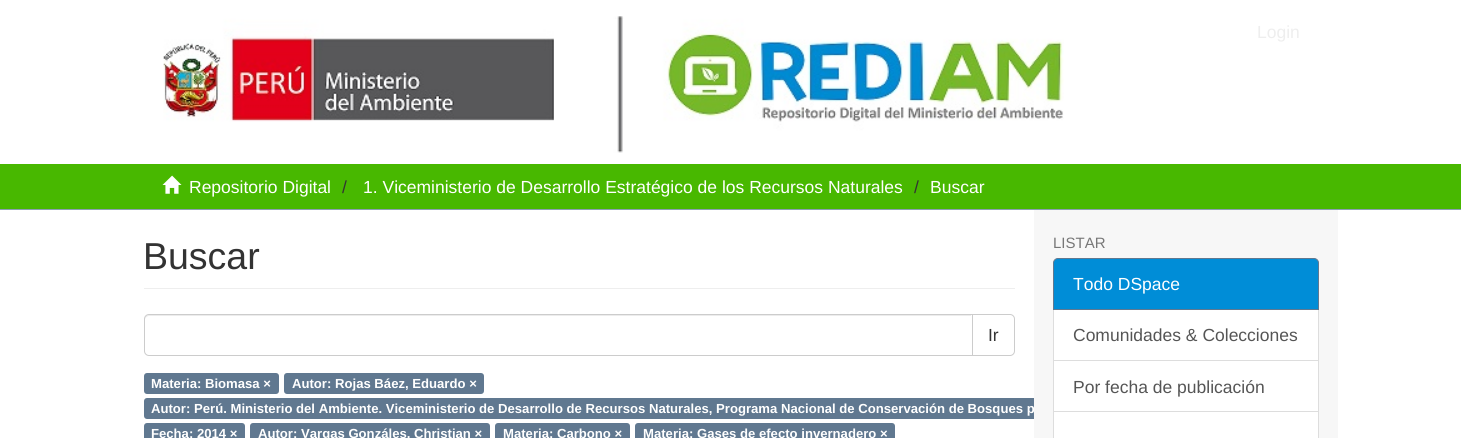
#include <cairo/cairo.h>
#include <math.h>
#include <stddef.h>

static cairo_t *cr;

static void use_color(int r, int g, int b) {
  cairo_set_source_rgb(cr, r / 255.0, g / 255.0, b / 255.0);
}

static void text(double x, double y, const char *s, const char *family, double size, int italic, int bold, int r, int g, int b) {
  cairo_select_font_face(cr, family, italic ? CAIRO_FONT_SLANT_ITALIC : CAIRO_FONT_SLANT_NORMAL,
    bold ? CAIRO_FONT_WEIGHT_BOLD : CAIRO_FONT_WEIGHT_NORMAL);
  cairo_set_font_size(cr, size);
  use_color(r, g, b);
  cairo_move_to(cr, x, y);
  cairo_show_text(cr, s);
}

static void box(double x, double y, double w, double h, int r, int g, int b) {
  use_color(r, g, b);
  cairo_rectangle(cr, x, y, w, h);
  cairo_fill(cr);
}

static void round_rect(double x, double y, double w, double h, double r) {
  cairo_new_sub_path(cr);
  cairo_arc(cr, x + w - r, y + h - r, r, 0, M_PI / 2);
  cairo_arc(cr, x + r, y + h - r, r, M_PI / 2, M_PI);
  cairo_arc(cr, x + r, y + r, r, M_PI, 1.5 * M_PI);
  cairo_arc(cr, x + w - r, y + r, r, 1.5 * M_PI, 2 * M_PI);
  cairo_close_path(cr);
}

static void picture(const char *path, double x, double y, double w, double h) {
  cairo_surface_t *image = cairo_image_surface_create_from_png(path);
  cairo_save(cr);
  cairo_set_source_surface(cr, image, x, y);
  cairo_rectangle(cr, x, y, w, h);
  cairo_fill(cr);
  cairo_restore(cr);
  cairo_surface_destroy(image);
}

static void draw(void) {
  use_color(255, 255, 255);
  cairo_paint(cr);
  picture("img_01.png", 163, 16, 901, 137);
  box(0, 164, 1461, 45, 72, 184, 0);
  box(0, 209, 1461, 1, 139, 158, 178);
  picture("img_02.png", 162, 175, 20, 19);
  box(144, 288, 871, 1, 238, 238, 238);
  cairo_new_path(cr);
  cairo_move_to(cr, 971.5, 314.5);
  cairo_line_to(cr, 1010, 314.5);
  cairo_curve_to(cr, 1012.5, 314.5, 1014.5, 316.5, 1014.5, 319);
  cairo_line_to(cr, 1014.5, 351);
  cairo_curve_to(cr, 1014.5, 353.5, 1012.5, 355.5, 1010, 355.5);
  cairo_line_to(cr, 971.5, 355.5);
  cairo_close_path(cr);
  use_color(204, 204, 204);
  cairo_set_line_width(cr, 1);
  cairo_stroke(cr);
  use_color(255, 255, 255);
  cairo_new_path(cr);
  cairo_move_to(cr, 149, 314);
  cairo_line_to(cr, 973, 314);
  cairo_line_to(cr, 973, 356);
  cairo_line_to(cr, 149, 356);
  cairo_curve_to(cr, 146, 356, 144, 354, 144, 351);
  cairo_line_to(cr, 144, 319);
  cairo_curve_to(cr, 144, 316, 146, 314, 149, 314);
  cairo_close_path(cr);
  cairo_fill(cr);
  use_color(236, 236, 236);
  cairo_new_path(cr);
  cairo_move_to(cr, 149, 316);
  cairo_line_to(cr, 971, 316);
  cairo_line_to(cr, 971, 315);
  cairo_line_to(cr, 149, 315);
  cairo_curve_to(cr, 146, 315, 145, 317, 145, 320);
  cairo_curve_to(cr, 145, 318, 147, 316, 149, 316);
  cairo_close_path(cr);
  cairo_fill(cr);
  cairo_new_path(cr);
  cairo_move_to(cr, 149, 314.5);
  cairo_line_to(cr, 972.5, 314.5);
  cairo_line_to(cr, 972.5, 355.5);
  cairo_line_to(cr, 149, 355.5);
  cairo_curve_to(cr, 146.5, 355.5, 144.5, 353.5, 144.5, 351);
  cairo_line_to(cr, 144.5, 319);
  cairo_curve_to(cr, 144.5, 316.5, 146.5, 314.5, 149, 314.5);
  cairo_close_path(cr);
  use_color(204, 204, 204);
  cairo_stroke(cr);
  use_color(96, 120, 144);
  round_rect(144, 373, 135, 21, 3);
  cairo_fill(cr);
  round_rect(284, 373, 200, 21, 3);
  cairo_fill(cr);
  round_rect(144, 398, 1150, 21, 3);
  cairo_fill(cr);
  round_rect(144, 423, 101, 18, 3);
  cairo_fill(cr);
  round_rect(250, 423, 240, 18, 3);
  cairo_fill(cr);
  round_rect(495, 423, 135, 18, 3);
  cairo_fill(cr);
  round_rect(635, 423, 260, 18, 3);
  cairo_fill(cr);
  text(1257, 38, "Login", "Liberation Sans", 17.5, 0, 0, 238, 238, 238);
  text(189, 193, "Repositorio Digital", "Liberation Sans", 17.5, 0, 0, 255, 255, 255);
  text(342, 193, "/", "Liberation Sans", 17.5, 0, 0, 51, 51, 51);
  text(363, 193, "1. Viceministerio de Desarrollo Estratégico de los Recursos Naturales", "Liberation Sans", 17.5, 0, 0, 255, 255, 255);
  text(914, 193, "/", "Liberation Sans", 17.5, 0, 0, 51, 51, 51);
  text(930, 193, "Buscar", "Liberation Sans", 17.5, 0, 0, 255, 255, 255);
  text(143, 269, "Buscar", "Liberation Sans", 37.5, 0, 0, 51, 51, 51);
  text(988, 341, "Ir", "Liberation Sans", 17.5, 0, 0, 51, 51, 51);
  text(151, 388, "Materia: Biomasa ×", "Liberation Sans", 13.12, 0, 1, 255, 255, 255);
  text(292, 388, "Autor: Rojas Báez, Eduardo ×", "Liberation Sans", 13.12, 0, 1, 255, 255, 255);
  text(151, 413, "Autor: Perú. Ministerio del Ambiente. Viceministerio de Desarrollo de Recursos Naturales, Programa Nacional de Conservación de Bosques p", "Liberation Sans", 13.12, 0, 1, 255, 255, 255);
  text(151, 438, "Fecha: 2014 ×", "Liberation Sans", 13.12, 0, 1, 255, 255, 255);
  text(258, 438, "Autor: Vargas Gonzáles, Christian ×", "Liberation Sans", 13.12, 0, 1, 255, 255, 255);
  text(503, 438, "Materia: Carbono ×", "Liberation Sans", 13.12, 0, 1, 255, 255, 255);
  text(643, 438, "Materia: Gases de efecto invernadero ×", "Liberation Sans", 13.12, 0, 1, 255, 255, 255);
  box(1034, 210, 304, 228, 247, 247, 247);
  text(1053, 248, "LISTAR", "Liberation Sans", 15, 0, 0, 119, 119, 119);
  use_color(255, 255, 255);
  cairo_rectangle(cr, 1053.5, 309.5, 265, 51);
  cairo_fill_preserve(cr);
  use_color(221, 221, 221);
  cairo_stroke(cr);
  use_color(0, 141, 215);
  cairo_new_path(cr);
  cairo_move_to(cr, 1058, 258.5);
  cairo_line_to(cr, 1314, 258.5);
  cairo_curve_to(cr, 1316.5, 258.5, 1318.5, 260.5, 1318.5, 263);
  cairo_line_to(cr, 1318.5, 309.5);
  cairo_line_to(cr, 1053.5, 309.5);
  cairo_line_to(cr, 1053.5, 263);
  cairo_curve_to(cr, 1053.5, 260.5, 1055.5, 258.5, 1058, 258.5);
  cairo_close_path(cr);
  cairo_fill_preserve(cr);
  use_color(96, 120, 144);
  cairo_stroke(cr);
  text(1073, 290, "Todo DSpace", "Liberation Sans", 17.5, 0, 0, 255, 255, 255);
  text(1073, 341, "Comunidades & Colecciones", "Liberation Sans", 17.5, 0, 0, 85, 85, 85);
  box(1054, 361, 264, 50, 255, 255, 255);
  cairo_rectangle(cr, 1053.5, 360.5, 265, 52);
  use_color(221, 221, 221);
  cairo_stroke(cr);
  text(1073, 393, "Por fecha de publicación", "Liberation Sans", 17.5, 0, 0, 85, 85, 85);
  use_color(255, 255, 255);
  cairo_rectangle(cr, 1053.5, 411.5, 265, 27);
  cairo_fill_preserve(cr);
  use_color(221, 221, 221);
  cairo_stroke(cr);
}

int main(void) {
  cairo_surface_t *surface = cairo_image_surface_create(CAIRO_FORMAT_RGB24, 1461, 438);
  cr = cairo_create(surface);
  cairo_font_options_t *options = cairo_font_options_create();
  cairo_font_options_set_hint_metrics(options, CAIRO_HINT_METRICS_OFF);
  cairo_font_options_set_hint_style(options, CAIRO_HINT_STYLE_NONE);
  cairo_set_font_options(cr, options);
  cairo_set_miter_limit(cr, 4);
  draw();
  cairo_surface_write_to_png(surface, "out.png");
  cairo_font_options_destroy(options);
  cairo_destroy(cr);
  cairo_surface_destroy(surface);
  return 0;
}
